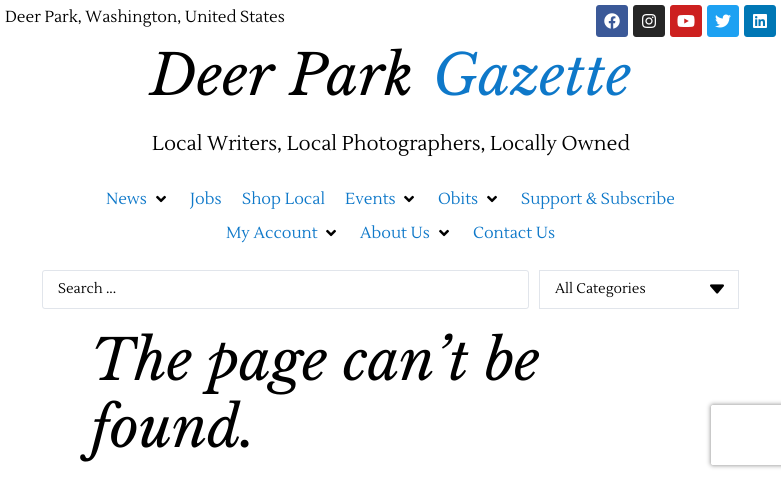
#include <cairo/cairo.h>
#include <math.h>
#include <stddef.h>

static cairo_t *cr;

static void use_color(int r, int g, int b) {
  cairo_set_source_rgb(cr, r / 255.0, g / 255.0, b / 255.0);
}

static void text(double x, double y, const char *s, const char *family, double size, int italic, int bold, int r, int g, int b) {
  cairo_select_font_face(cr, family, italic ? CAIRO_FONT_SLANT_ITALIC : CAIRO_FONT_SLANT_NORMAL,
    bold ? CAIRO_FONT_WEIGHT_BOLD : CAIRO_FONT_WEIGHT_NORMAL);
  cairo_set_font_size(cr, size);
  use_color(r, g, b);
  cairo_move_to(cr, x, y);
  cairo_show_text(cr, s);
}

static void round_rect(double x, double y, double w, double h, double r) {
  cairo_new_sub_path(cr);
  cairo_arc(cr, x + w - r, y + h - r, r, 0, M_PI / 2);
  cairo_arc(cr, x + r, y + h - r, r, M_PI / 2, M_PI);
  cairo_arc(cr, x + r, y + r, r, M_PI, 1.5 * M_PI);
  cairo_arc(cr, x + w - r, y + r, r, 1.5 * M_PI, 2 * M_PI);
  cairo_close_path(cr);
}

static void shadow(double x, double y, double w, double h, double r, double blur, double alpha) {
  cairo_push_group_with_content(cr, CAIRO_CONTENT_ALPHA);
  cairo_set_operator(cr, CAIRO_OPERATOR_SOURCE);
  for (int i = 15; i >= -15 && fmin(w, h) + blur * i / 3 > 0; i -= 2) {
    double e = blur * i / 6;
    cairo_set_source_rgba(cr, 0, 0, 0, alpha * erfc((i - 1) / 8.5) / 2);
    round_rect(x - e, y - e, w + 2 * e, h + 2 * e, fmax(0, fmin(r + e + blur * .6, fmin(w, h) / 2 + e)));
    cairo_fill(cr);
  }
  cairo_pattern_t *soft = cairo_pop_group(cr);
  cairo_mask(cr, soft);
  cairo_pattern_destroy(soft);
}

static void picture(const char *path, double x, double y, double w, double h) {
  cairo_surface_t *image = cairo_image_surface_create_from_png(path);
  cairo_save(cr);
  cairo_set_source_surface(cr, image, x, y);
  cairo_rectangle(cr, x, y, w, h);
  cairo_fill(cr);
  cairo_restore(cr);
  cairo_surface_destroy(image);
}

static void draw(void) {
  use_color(255, 255, 255);
  cairo_paint(cr);
  use_color(59, 89, 152);
  round_rect(596, 5, 32, 32, 3);
  cairo_fill(cr);
  picture("img_01.png", 604, 13, 16, 16);
  use_color(38, 38, 38);
  round_rect(633, 5, 32, 32, 3);
  cairo_fill(cr);
  picture("img_02.png", 642, 14, 14, 14);
  use_color(205, 32, 31);
  round_rect(670, 5, 32, 32, 3);
  cairo_fill(cr);
  picture("img_03.png", 677, 15, 18, 12);
  use_color(29, 161, 242);
  round_rect(707, 5, 32, 32, 3);
  cairo_fill(cr);
  picture("img_04.png", 715, 14, 16, 14);
  use_color(0, 119, 181);
  round_rect(744, 5, 32, 32, 3);
  cairo_fill(cr);
  picture("img_05.png", 753, 14, 14, 14);
  picture("img_06.png", 156, 195, 10, 8);
  picture("img_06.png", 404, 195, 10, 8);
  picture("img_06.png", 487, 195, 10, 8);
  picture("img_06.png", 326, 229, 10, 8);
  picture("img_06.png", 439, 229, 10, 8);
  round_rect(42.5, 270.5, 486, 38, 2.5);
  use_color(225, 229, 235);
  cairo_set_line_width(cr, 1);
  cairo_stroke(cr);
  cairo_rectangle(cr, 539.5, 270.5, 199, 38);
  cairo_stroke(cr);
  picture("img_07.png", 710, 284, 14, 10);
  cairo_save(cr);
  cairo_set_fill_rule(cr, CAIRO_FILL_RULE_EVEN_ODD);
  cairo_new_path(cr);
  cairo_move_to(cr, 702, 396);
  cairo_line_to(cr, 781, 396);
  cairo_line_to(cr, 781, 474);
  cairo_line_to(cr, 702, 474);
  cairo_close_path(cr);
  cairo_move_to(cr, 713, 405);
  cairo_line_to(cr, 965, 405);
  cairo_curve_to(cr, 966, 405, 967, 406, 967, 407);
  cairo_line_to(cr, 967, 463);
  cairo_curve_to(cr, 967, 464, 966, 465, 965, 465);
  cairo_line_to(cr, 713, 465);
  cairo_curve_to(cr, 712, 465, 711, 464, 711, 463);
  cairo_line_to(cr, 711, 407);
  cairo_curve_to(cr, 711, 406, 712, 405, 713, 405);
  cairo_close_path(cr);
  cairo_clip(cr);
  use_color(128, 128, 128);
  shadow(711, 405, 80, 60, 2, 2.5, 1);
  cairo_restore(cr);
  text(5, 22, "Deer Park, Washington, United States", "Lustria", 16, 0, 0, 0, 0, 0);
  text(150, 95, "Deer Park", "Libre Baskerville", 56, 1, 0, 0, 0, 0);
  text(433, 95, "Gazette", "Libre Baskerville", 56, 1, 0, 14, 120, 201);
  text(152, 150, "Local Writers, Local Photographers, Locally Owned", "Lustria", 20, 0, 0, 0, 0, 0);
  text(106, 204, "News", "Lustria", 16, 0, 0, 14, 120, 201);
  text(190, 204, "Jobs", "Lustria", 16, 0, 0, 14, 120, 201);
  text(242, 204, "Shop Local", "Lustria", 16, 0, 0, 14, 120, 201);
  text(345, 204, "Events", "Lustria", 16, 0, 0, 14, 120, 201);
  text(438, 204, "Obits", "Lustria", 16, 0, 0, 14, 120, 201);
  text(521, 204, "Support & Subscribe", "Lustria", 16, 0, 0, 14, 120, 201);
  text(226, 238, "My Account", "Lustria", 16, 0, 0, 14, 120, 201);
  text(360, 238, "About Us", "Lustria", 16, 0, 0, 14, 120, 201);
  text(473, 238, "Contact Us", "Lustria", 16, 0, 0, 14, 120, 201);
  text(58, 293, "Search ...", "Lustria", 14, 0, 0, 0, 0, 0);
  text(555, 293, "All Categories", "Lustria", 14, 0, 0, 0, 0, 0);
  text(91, 380, "The page can’t be", "Libre Baskerville", 56, 1, 0, 0, 0, 0);
  text(91, 447, "found.", "Libre Baskerville", 56, 1, 0, 0, 0, 0);
}

int main(void) {
  cairo_surface_t *surface = cairo_image_surface_create(CAIRO_FORMAT_RGB24, 781, 479);
  cr = cairo_create(surface);
  cairo_font_options_t *options = cairo_font_options_create();
  cairo_font_options_set_hint_metrics(options, CAIRO_HINT_METRICS_OFF);
  cairo_font_options_set_hint_style(options, CAIRO_HINT_STYLE_NONE);
  cairo_set_font_options(cr, options);
  cairo_set_miter_limit(cr, 4);
  draw();
  cairo_surface_write_to_png(surface, "out.png");
  cairo_font_options_destroy(options);
  cairo_destroy(cr);
  cairo_surface_destroy(surface);
  return 0;
}
